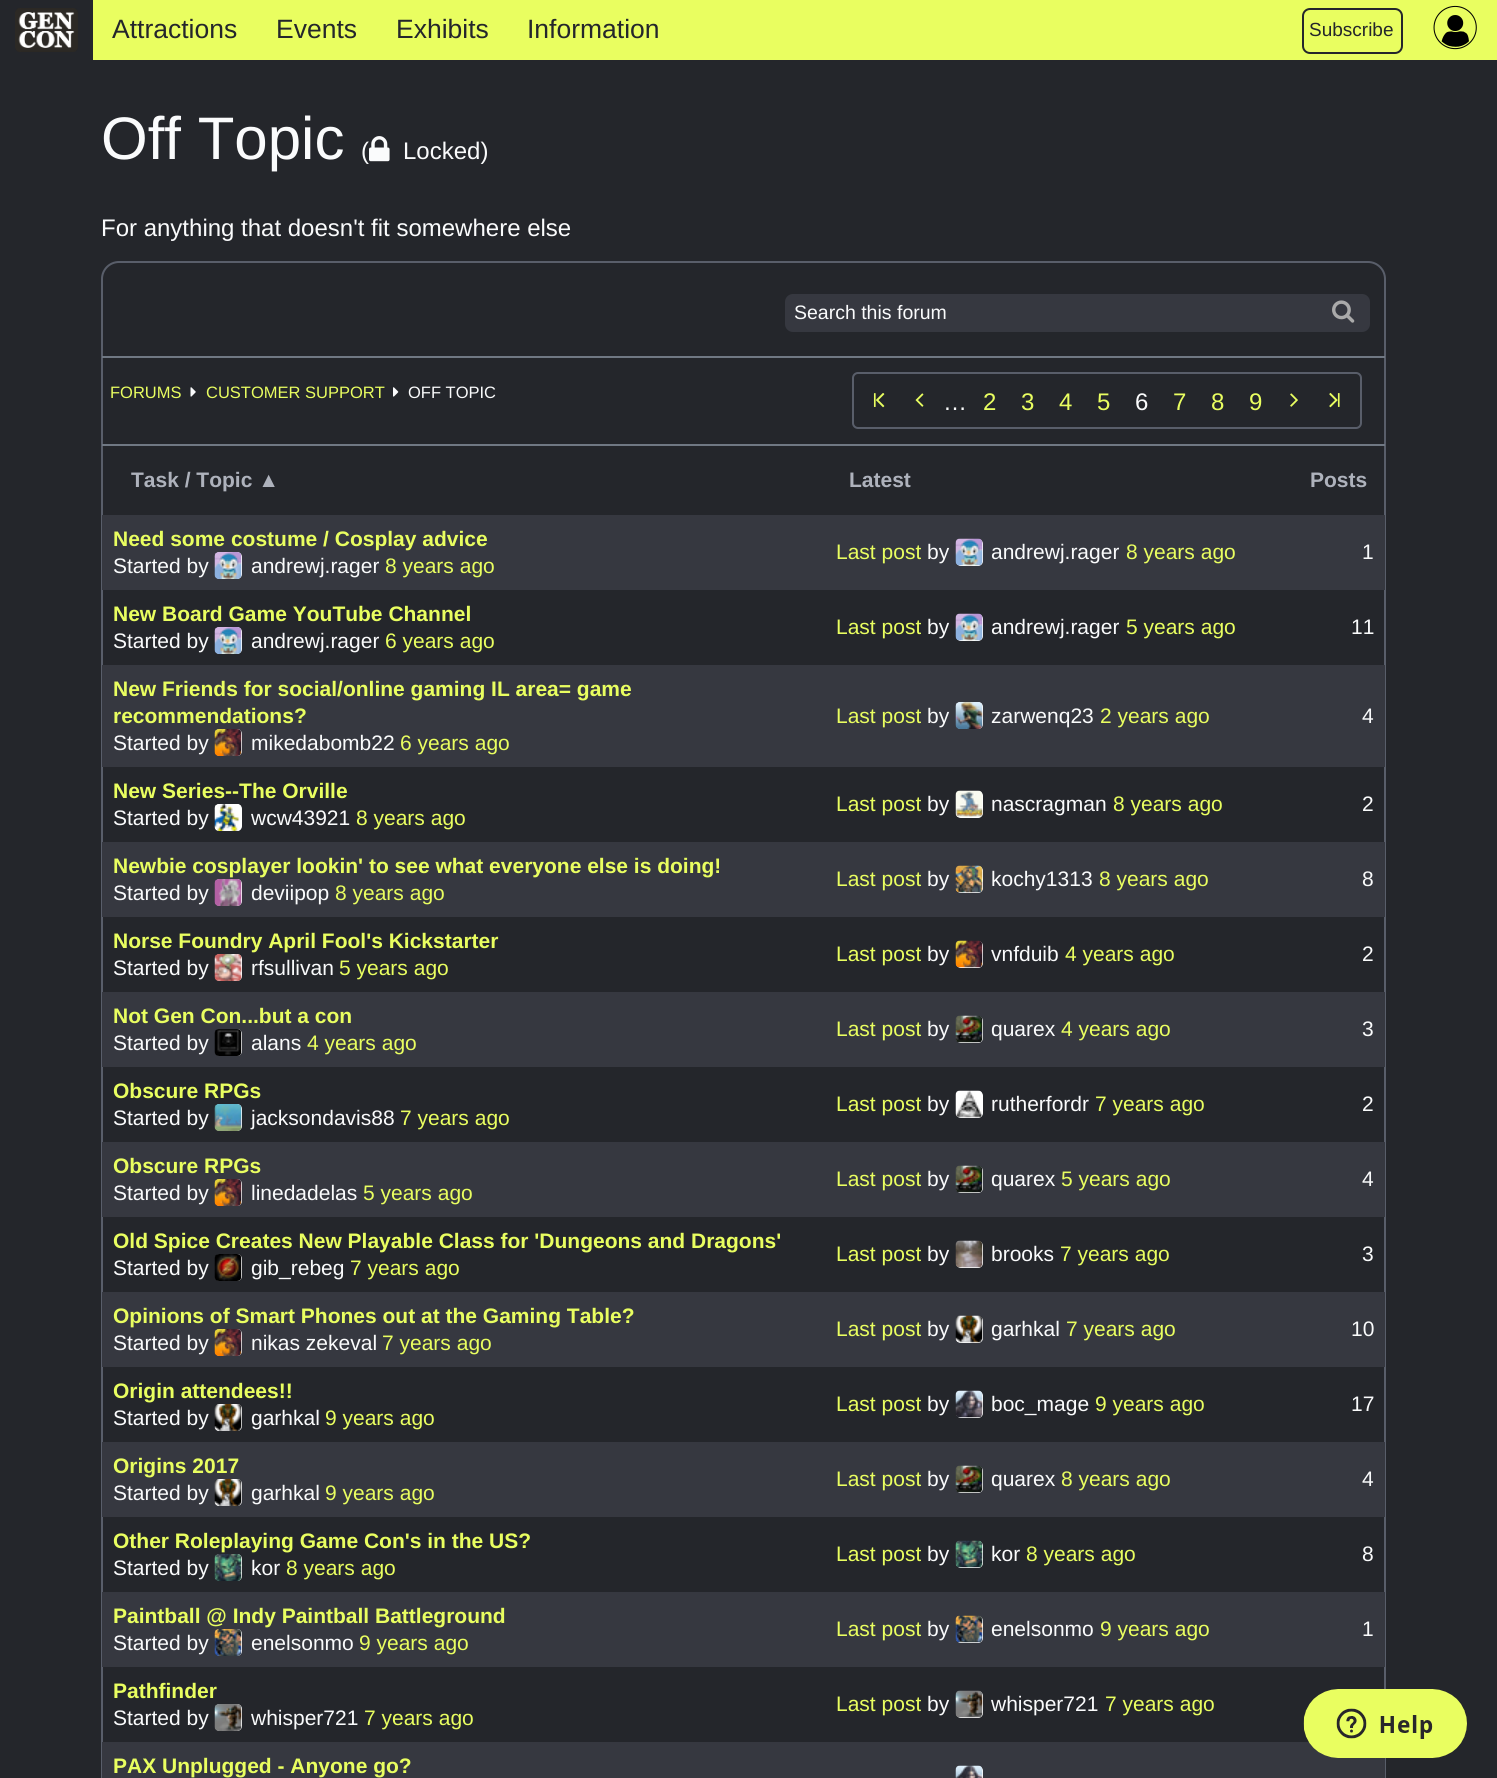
#include <cairo/cairo.h>
#include <math.h>
#include <stddef.h>

static cairo_t *cr;

static void use_color(int r, int g, int b) {
  cairo_set_source_rgb(cr, r / 255.0, g / 255.0, b / 255.0);
}

static void text(double x, double y, const char *s, const char *family, double size, int italic, int bold, int r, int g, int b) {
  cairo_select_font_face(cr, family, italic ? CAIRO_FONT_SLANT_ITALIC : CAIRO_FONT_SLANT_NORMAL,
    bold ? CAIRO_FONT_WEIGHT_BOLD : CAIRO_FONT_WEIGHT_NORMAL);
  cairo_set_font_size(cr, size);
  use_color(r, g, b);
  cairo_move_to(cr, x, y);
  cairo_show_text(cr, s);
}

static void box(double x, double y, double w, double h, int r, int g, int b) {
  use_color(r, g, b);
  cairo_rectangle(cr, x, y, w, h);
  cairo_fill(cr);
}

static void round_rect(double x, double y, double w, double h, double r) {
  cairo_new_sub_path(cr);
  cairo_arc(cr, x + w - r, y + h - r, r, 0, M_PI / 2);
  cairo_arc(cr, x + r, y + h - r, r, M_PI / 2, M_PI);
  cairo_arc(cr, x + r, y + r, r, M_PI, 1.5 * M_PI);
  cairo_arc(cr, x + w - r, y + r, r, 1.5 * M_PI, 2 * M_PI);
  cairo_close_path(cr);
}

static void picture(const char *path, double x, double y, double w, double h) {
  cairo_surface_t *image = cairo_image_surface_create_from_png(path);
  cairo_save(cr);
  cairo_set_source_surface(cr, image, x, y);
  cairo_rectangle(cr, x, y, w, h);
  cairo_fill(cr);
  cairo_restore(cr);
  cairo_surface_destroy(image);
}

static void draw(void) {
  use_color(36, 38, 43);
  cairo_paint(cr);
  box(93, 0, 1404, 60, 233, 254, 96);
  picture("img_01.png", 15, 8, 63, 44);
  round_rect(1303, 9, 99, 44, 7);
  use_color(36, 38, 43);
  cairo_stroke(cr);
  picture("img_02.png", 1433, 5, 44, 45);
  round_rect(102, 262, 1283, 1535, 17);
  use_color(89, 94, 106);
  cairo_stroke(cr);
  box(102, 356, 1283, 2, 112, 120, 131);
  use_color(54, 56, 64);
  round_rect(786, 295, 583, 36, 7);
  cairo_fill_preserve(cr);
  cairo_stroke(cr);
  picture("img_04.png", 1332, 300, 23, 23);
  box(102, 444, 1283, 2, 112, 120, 131);
  picture("img_05.png", 190, 387, 6, 10);
  picture("img_06.png", 393, 387, 6, 10);
  round_rect(853, 373, 508, 55, 5);
  use_color(89, 94, 106);
  cairo_stroke(cr);
  picture("img_07.png", 873, 393, 12, 15);
  picture("img_08.png", 915, 393, 9, 14);
  picture("img_09.png", 1290, 393, 8, 14);
  picture("img_10.png", 1329, 392, 11, 16);
  box(102, 515, 1283, 75, 54, 56, 64);
  use_color(255, 255, 255);
  round_rect(215, 552, 27, 27, 5);
  cairo_fill(cr);
  picture("img_11.png", 214, 552, 28, 27);
  round_rect(956, 539, 27, 27, 5);
  cairo_fill(cr);
  picture("img_12.png", 955, 538, 28, 28);
  round_rect(215, 627, 27, 27, 5);
  cairo_fill(cr);
  picture("img_13.png", 214, 627, 28, 27);
  round_rect(956, 614, 27, 27, 5);
  cairo_fill(cr);
  picture("img_14.png", 955, 613, 28, 28);
  box(102, 665, 1283, 102, 54, 56, 64);
  use_color(255, 255, 255);
  round_rect(215, 729, 27, 27, 5);
  cairo_fill(cr);
  picture("img_15.png", 214, 729, 28, 27);
  round_rect(956, 702, 27, 27, 5);
  cairo_fill(cr);
  picture("img_16.png", 955, 702, 28, 27);
  round_rect(215, 804, 27, 27, 5);
  cairo_fill(cr);
  picture("img_17.png", 214, 804, 28, 27);
  round_rect(956, 791, 27, 27, 5);
  cairo_fill(cr);
  picture("img_18.png", 955, 790, 28, 28);
  box(102, 842, 1283, 75, 54, 56, 64);
  use_color(255, 255, 255);
  round_rect(215, 879, 27, 27, 5);
  cairo_fill(cr);
  picture("img_19.png", 214, 879, 28, 27);
  round_rect(956, 866, 27, 27, 5);
  cairo_fill(cr);
  picture("img_20.png", 955, 865, 28, 28);
  round_rect(215, 954, 27, 27, 5);
  cairo_fill(cr);
  picture("img_21.png", 214, 954, 28, 27);
  round_rect(956, 941, 27, 27, 5);
  cairo_fill(cr);
  picture("img_22.png", 955, 940, 28, 28);
  box(102, 992, 1283, 75, 54, 56, 64);
  use_color(255, 255, 255);
  round_rect(215, 1029, 27, 27, 5);
  cairo_fill(cr);
  picture("img_23.png", 214, 1029, 28, 27);
  round_rect(956, 1016, 27, 27, 5);
  cairo_fill(cr);
  picture("img_24.png", 955, 1015, 28, 28);
  round_rect(215, 1104, 27, 27, 5);
  cairo_fill(cr);
  picture("img_25.png", 214, 1104, 28, 27);
  round_rect(956, 1091, 27, 27, 5);
  cairo_fill(cr);
  picture("img_26.png", 955, 1090, 28, 28);
  box(102, 1142, 1283, 75, 54, 56, 64);
  use_color(255, 255, 255);
  round_rect(215, 1179, 27, 27, 5);
  cairo_fill(cr);
  picture("img_15.png", 214, 1179, 28, 27);
  round_rect(956, 1166, 27, 27, 5);
  cairo_fill(cr);
  picture("img_27.png", 955, 1165, 28, 28);
  round_rect(215, 1254, 27, 27, 5);
  cairo_fill(cr);
  picture("img_28.png", 214, 1254, 28, 27);
  round_rect(956, 1241, 27, 27, 5);
  cairo_fill(cr);
  picture("img_29.png", 955, 1240, 28, 28);
  box(102, 1292, 1283, 75, 54, 56, 64);
  use_color(255, 255, 255);
  round_rect(215, 1329, 27, 27, 5);
  cairo_fill(cr);
  picture("img_15.png", 214, 1329, 28, 27);
  round_rect(956, 1316, 27, 27, 5);
  cairo_fill(cr);
  picture("img_30.png", 955, 1315, 28, 28);
  round_rect(215, 1404, 27, 27, 5);
  cairo_fill(cr);
  picture("img_31.png", 214, 1404, 28, 27);
  round_rect(956, 1391, 27, 27, 5);
  cairo_fill(cr);
  picture("img_32.png", 955, 1390, 28, 28);
  box(102, 1442, 1283, 75, 54, 56, 64);
  use_color(255, 255, 255);
  round_rect(215, 1479, 27, 27, 5);
  cairo_fill(cr);
  picture("img_33.png", 214, 1479, 28, 27);
  round_rect(956, 1466, 27, 27, 5);
  cairo_fill(cr);
  picture("img_27.png", 955, 1465, 28, 28);
  round_rect(215, 1554, 27, 27, 5);
  cairo_fill(cr);
  picture("img_34.png", 214, 1554, 28, 27);
  round_rect(956, 1541, 27, 27, 5);
  cairo_fill(cr);
  picture("img_35.png", 955, 1540, 28, 28);
  box(102, 1592, 1283, 75, 54, 56, 64);
  use_color(255, 255, 255);
  round_rect(215, 1629, 27, 27, 5);
  cairo_fill(cr);
  picture("img_36.png", 214, 1629, 28, 27);
  round_rect(956, 1616, 27, 27, 5);
  cairo_fill(cr);
  picture("img_37.png", 955, 1615, 28, 28);
  round_rect(215, 1704, 27, 27, 5);
  cairo_fill(cr);
  picture("img_38.png", 214, 1704, 28, 27);
  round_rect(956, 1691, 27, 27, 5);
  cairo_fill(cr);
  picture("img_39.png", 955, 1690, 28, 28);
  box(102, 1742, 1283, 36, 54, 56, 64);
  use_color(255, 255, 255);
  round_rect(956, 1766, 27, 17, 5);
  cairo_fill(cr);
  picture("img_40.png", 955, 1765, 28, 13);
  picture("img_41.png", 1303, 1689, 164, 69);
  text(112, 38, "Attractions", "Liberation Sans", 26.5, 0, 0, 36, 38, 43);
  text(276, 38, "Events", "Liberation Sans", 26.5, 0, 0, 36, 38, 43);
  text(396, 38, "Exhibits", "Liberation Sans", 26.5, 0, 0, 36, 38, 43);
  text(527, 38, "Information", "Liberation Sans", 26.5, 0, 0, 36, 38, 43);
  text(1309, 36, "Subscribe", "Liberation Sans", 19, 0, 0, 36, 38, 43);
  text(101, 159, "Off Topic", "Liberation Sans", 60, 0, 0, 250, 251, 252);
  text(361, 159, "(", "Liberation Sans", 24, 0, 0, 250, 251, 252);
  picture("img_03.png", 369, 136, 21, 26);
  text(403, 159, "Locked)", "Liberation Sans", 24, 0, 0, 250, 251, 252);
  text(101, 236, "For anything that doesn't fit somewhere else", "Liberation Sans", 24, 0, 0, 250, 251, 252);
  text(794, 319, "Search this forum", "Liberation Sans", 19.5, 0, 0, 250, 251, 252);
  text(110, 398, "FORUMS", "Liberation Sans", 16.5, 0, 0, 233, 254, 96);
  text(206, 398, "CUSTOMER SUPPORT", "Liberation Sans", 16.5, 0, 0, 233, 254, 96);
  text(408, 398, "OFF TOPIC", "Liberation Sans", 16.5, 0, 0, 250, 251, 252);
  text(983, 410, "2", "Liberation Sans", 24, 0, 0, 233, 254, 96);
  text(1021, 410, "3", "Liberation Sans", 24, 0, 0, 233, 254, 96);
  text(1059, 410, "4", "Liberation Sans", 24, 0, 0, 233, 254, 96);
  text(1097, 410, "5", "Liberation Sans", 24, 0, 0, 233, 254, 96);
  text(1135, 410, "6", "Liberation Sans", 24, 0, 0, 250, 251, 252);
  text(1173, 410, "7", "Liberation Sans", 24, 0, 0, 233, 254, 96);
  text(1211, 410, "8", "Liberation Sans", 24, 0, 0, 233, 254, 96);
  text(1249, 410, "9", "Liberation Sans", 24, 0, 0, 233, 254, 96);
  text(943, 410, "…", "Liberation Sans", 24, 0, 0, 250, 251, 252);
  text(131, 487, "Task / Topic ▲", "Liberation Sans", 21, 0, 1, 174, 178, 188);
  text(849, 487, "Latest", "Liberation Sans", 21, 0, 1, 174, 178, 188);
  text(1310, 487, "Posts", "Liberation Sans", 21, 0, 1, 174, 178, 188);
  text(113, 546, "Need some costume / Cosplay advice", "Liberation Sans", 21, 0, 1, 233, 254, 96);
  text(113, 573, "Started by", "Liberation Sans", 21, 0, 0, 250, 251, 252);
  text(251, 573, "andrewj.rager", "Liberation Sans", 21, 0, 0, 250, 251, 252);
  text(385, 573, "8 years ago", "Liberation Sans", 21, 0, 0, 233, 254, 96);
  text(836, 559, "Last post", "Liberation Sans", 21, 0, 0, 233, 254, 96);
  text(927, 559, "by", "Liberation Sans", 21, 0, 0, 250, 251, 252);
  text(991, 559, "andrewj.rager", "Liberation Sans", 21, 0, 0, 250, 251, 252);
  text(1126, 559, "8 years ago", "Liberation Sans", 21, 0, 0, 233, 254, 96);
  text(1362, 559, "1", "Liberation Sans", 21, 0, 0, 250, 251, 252);
  text(113, 621, "New Board Game YouTube Channel", "Liberation Sans", 21, 0, 1, 233, 254, 96);
  text(113, 648, "Started by", "Liberation Sans", 21, 0, 0, 250, 251, 252);
  text(251, 648, "andrewj.rager", "Liberation Sans", 21, 0, 0, 250, 251, 252);
  text(385, 648, "6 years ago", "Liberation Sans", 21, 0, 0, 233, 254, 96);
  text(836, 634, "Last post", "Liberation Sans", 21, 0, 0, 233, 254, 96);
  text(927, 634, "by", "Liberation Sans", 21, 0, 0, 250, 251, 252);
  text(991, 634, "andrewj.rager", "Liberation Sans", 21, 0, 0, 250, 251, 252);
  text(1126, 634, "5 years ago", "Liberation Sans", 21, 0, 0, 233, 254, 96);
  text(1351, 634, "11", "Liberation Sans", 21, 0, 0, 250, 251, 252);
  text(113, 696, "New Friends for social/online gaming IL area= game", "Liberation Sans", 21, 0, 1, 233, 254, 96);
  text(113, 723, "recommendations?", "Liberation Sans", 21, 0, 1, 233, 254, 96);
  text(113, 750, "Started by", "Liberation Sans", 21, 0, 0, 250, 251, 252);
  text(251, 750, "mikedabomb22", "Liberation Sans", 21, 0, 0, 250, 251, 252);
  text(400, 750, "6 years ago", "Liberation Sans", 21, 0, 0, 233, 254, 96);
  text(836, 723, "Last post", "Liberation Sans", 21, 0, 0, 233, 254, 96);
  text(927, 723, "by", "Liberation Sans", 21, 0, 0, 250, 251, 252);
  text(991, 723, "zarwenq23", "Liberation Sans", 21, 0, 0, 250, 251, 252);
  text(1100, 723, "2 years ago", "Liberation Sans", 21, 0, 0, 233, 254, 96);
  text(1362, 723, "4", "Liberation Sans", 21, 0, 0, 250, 251, 252);
  text(113, 798, "New Series--The Orville", "Liberation Sans", 21, 0, 1, 233, 254, 96);
  text(113, 825, "Started by", "Liberation Sans", 21, 0, 0, 250, 251, 252);
  text(251, 825, "wcw43921", "Liberation Sans", 21, 0, 0, 250, 251, 252);
  text(356, 825, "8 years ago", "Liberation Sans", 21, 0, 0, 233, 254, 96);
  text(836, 811, "Last post", "Liberation Sans", 21, 0, 0, 233, 254, 96);
  text(927, 811, "by", "Liberation Sans", 21, 0, 0, 250, 251, 252);
  text(991, 811, "nascragman", "Liberation Sans", 21, 0, 0, 250, 251, 252);
  text(1113, 811, "8 years ago", "Liberation Sans", 21, 0, 0, 233, 254, 96);
  text(1362, 811, "2", "Liberation Sans", 21, 0, 0, 250, 251, 252);
  text(113, 873, "Newbie cosplayer lookin' to see what everyone else is doing!", "Liberation Sans", 21, 0, 1, 233, 254, 96);
  text(113, 900, "Started by", "Liberation Sans", 21, 0, 0, 250, 251, 252);
  text(251, 900, "deviipop", "Liberation Sans", 21, 0, 0, 250, 251, 252);
  text(335, 900, "8 years ago", "Liberation Sans", 21, 0, 0, 233, 254, 96);
  text(836, 886, "Last post", "Liberation Sans", 21, 0, 0, 233, 254, 96);
  text(927, 886, "by", "Liberation Sans", 21, 0, 0, 250, 251, 252);
  text(991, 886, "kochy1313", "Liberation Sans", 21, 0, 0, 250, 251, 252);
  text(1099, 886, "8 years ago", "Liberation Sans", 21, 0, 0, 233, 254, 96);
  text(1362, 886, "8", "Liberation Sans", 21, 0, 0, 250, 251, 252);
  text(113, 948, "Norse Foundry April Fool's Kickstarter", "Liberation Sans", 21, 0, 1, 233, 254, 96);
  text(113, 975, "Started by", "Liberation Sans", 21, 0, 0, 250, 251, 252);
  text(251, 975, "rfsullivan", "Liberation Sans", 21, 0, 0, 250, 251, 252);
  text(339, 975, "5 years ago", "Liberation Sans", 21, 0, 0, 233, 254, 96);
  text(836, 961, "Last post", "Liberation Sans", 21, 0, 0, 233, 254, 96);
  text(927, 961, "by", "Liberation Sans", 21, 0, 0, 250, 251, 252);
  text(991, 961, "vnfduib", "Liberation Sans", 21, 0, 0, 250, 251, 252);
  text(1065, 961, "4 years ago", "Liberation Sans", 21, 0, 0, 233, 254, 96);
  text(1362, 961, "2", "Liberation Sans", 21, 0, 0, 250, 251, 252);
  text(113, 1023, "Not Gen Con...but a con", "Liberation Sans", 21, 0, 1, 233, 254, 96);
  text(113, 1050, "Started by", "Liberation Sans", 21, 0, 0, 250, 251, 252);
  text(251, 1050, "alans", "Liberation Sans", 21, 0, 0, 250, 251, 252);
  text(307, 1050, "4 years ago", "Liberation Sans", 21, 0, 0, 233, 254, 96);
  text(836, 1036, "Last post", "Liberation Sans", 21, 0, 0, 233, 254, 96);
  text(927, 1036, "by", "Liberation Sans", 21, 0, 0, 250, 251, 252);
  text(991, 1036, "quarex", "Liberation Sans", 21, 0, 0, 250, 251, 252);
  text(1061, 1036, "4 years ago", "Liberation Sans", 21, 0, 0, 233, 254, 96);
  text(1362, 1036, "3", "Liberation Sans", 21, 0, 0, 250, 251, 252);
  text(113, 1098, "Obscure RPGs", "Liberation Sans", 21, 0, 1, 233, 254, 96);
  text(113, 1125, "Started by", "Liberation Sans", 21, 0, 0, 250, 251, 252);
  text(251, 1125, "jacksondavis88", "Liberation Sans", 21, 0, 0, 250, 251, 252);
  text(400, 1125, "7 years ago", "Liberation Sans", 21, 0, 0, 233, 254, 96);
  text(836, 1111, "Last post", "Liberation Sans", 21, 0, 0, 233, 254, 96);
  text(927, 1111, "by", "Liberation Sans", 21, 0, 0, 250, 251, 252);
  text(991, 1111, "rutherfordr", "Liberation Sans", 21, 0, 0, 250, 251, 252);
  text(1095, 1111, "7 years ago", "Liberation Sans", 21, 0, 0, 233, 254, 96);
  text(1362, 1111, "2", "Liberation Sans", 21, 0, 0, 250, 251, 252);
  text(113, 1173, "Obscure RPGs", "Liberation Sans", 21, 0, 1, 233, 254, 96);
  text(113, 1200, "Started by", "Liberation Sans", 21, 0, 0, 250, 251, 252);
  text(251, 1200, "linedadelas", "Liberation Sans", 21, 0, 0, 250, 251, 252);
  text(363, 1200, "5 years ago", "Liberation Sans", 21, 0, 0, 233, 254, 96);
  text(836, 1186, "Last post", "Liberation Sans", 21, 0, 0, 233, 254, 96);
  text(927, 1186, "by", "Liberation Sans", 21, 0, 0, 250, 251, 252);
  text(991, 1186, "quarex", "Liberation Sans", 21, 0, 0, 250, 251, 252);
  text(1061, 1186, "5 years ago", "Liberation Sans", 21, 0, 0, 233, 254, 96);
  text(1362, 1186, "4", "Liberation Sans", 21, 0, 0, 250, 251, 252);
  text(113, 1248, "Old Spice Creates New Playable Class for 'Dungeons and Dragons'", "Liberation Sans", 21, 0, 1, 233, 254, 96);
  text(113, 1275, "Started by", "Liberation Sans", 21, 0, 0, 250, 251, 252);
  text(251, 1275, "gib_rebeg", "Liberation Sans", 21, 0, 0, 250, 251, 252);
  text(350, 1275, "7 years ago", "Liberation Sans", 21, 0, 0, 233, 254, 96);
  text(836, 1261, "Last post", "Liberation Sans", 21, 0, 0, 233, 254, 96);
  text(927, 1261, "by", "Liberation Sans", 21, 0, 0, 250, 251, 252);
  text(991, 1261, "brooks", "Liberation Sans", 21, 0, 0, 250, 251, 252);
  text(1060, 1261, "7 years ago", "Liberation Sans", 21, 0, 0, 233, 254, 96);
  text(1362, 1261, "3", "Liberation Sans", 21, 0, 0, 250, 251, 252);
  text(113, 1323, "Opinions of Smart Phones out at the Gaming Table?", "Liberation Sans", 21, 0, 1, 233, 254, 96);
  text(113, 1350, "Started by", "Liberation Sans", 21, 0, 0, 250, 251, 252);
  text(251, 1350, "nikas zekeval", "Liberation Sans", 21, 0, 0, 250, 251, 252);
  text(382, 1350, "7 years ago", "Liberation Sans", 21, 0, 0, 233, 254, 96);
  text(836, 1336, "Last post", "Liberation Sans", 21, 0, 0, 233, 254, 96);
  text(927, 1336, "by", "Liberation Sans", 21, 0, 0, 250, 251, 252);
  text(991, 1336, "garhkal", "Liberation Sans", 21, 0, 0, 250, 251, 252);
  text(1066, 1336, "7 years ago", "Liberation Sans", 21, 0, 0, 233, 254, 96);
  text(1351, 1336, "10", "Liberation Sans", 21, 0, 0, 250, 251, 252);
  text(113, 1398, "Origin attendees!!", "Liberation Sans", 21, 0, 1, 233, 254, 96);
  text(113, 1425, "Started by", "Liberation Sans", 21, 0, 0, 250, 251, 252);
  text(251, 1425, "garhkal", "Liberation Sans", 21, 0, 0, 250, 251, 252);
  text(325, 1425, "9 years ago", "Liberation Sans", 21, 0, 0, 233, 254, 96);
  text(836, 1411, "Last post", "Liberation Sans", 21, 0, 0, 233, 254, 96);
  text(927, 1411, "by", "Liberation Sans", 21, 0, 0, 250, 251, 252);
  text(991, 1411, "boc_mage", "Liberation Sans", 21, 0, 0, 250, 251, 252);
  text(1095, 1411, "9 years ago", "Liberation Sans", 21, 0, 0, 233, 254, 96);
  text(1351, 1411, "17", "Liberation Sans", 21, 0, 0, 250, 251, 252);
  text(113, 1473, "Origins 2017", "Liberation Sans", 21, 0, 1, 233, 254, 96);
  text(113, 1500, "Started by", "Liberation Sans", 21, 0, 0, 250, 251, 252);
  text(251, 1500, "garhkal", "Liberation Sans", 21, 0, 0, 250, 251, 252);
  text(325, 1500, "9 years ago", "Liberation Sans", 21, 0, 0, 233, 254, 96);
  text(836, 1486, "Last post", "Liberation Sans", 21, 0, 0, 233, 254, 96);
  text(927, 1486, "by", "Liberation Sans", 21, 0, 0, 250, 251, 252);
  text(991, 1486, "quarex", "Liberation Sans", 21, 0, 0, 250, 251, 252);
  text(1061, 1486, "8 years ago", "Liberation Sans", 21, 0, 0, 233, 254, 96);
  text(1362, 1486, "4", "Liberation Sans", 21, 0, 0, 250, 251, 252);
  text(113, 1548, "Other Roleplaying Game Con's in the US?", "Liberation Sans", 21, 0, 1, 233, 254, 96);
  text(113, 1575, "Started by", "Liberation Sans", 21, 0, 0, 250, 251, 252);
  text(251, 1575, "kor", "Liberation Sans", 21, 0, 0, 250, 251, 252);
  text(286, 1575, "8 years ago", "Liberation Sans", 21, 0, 0, 233, 254, 96);
  text(836, 1561, "Last post", "Liberation Sans", 21, 0, 0, 233, 254, 96);
  text(927, 1561, "by", "Liberation Sans", 21, 0, 0, 250, 251, 252);
  text(991, 1561, "kor", "Liberation Sans", 21, 0, 0, 250, 251, 252);
  text(1026, 1561, "8 years ago", "Liberation Sans", 21, 0, 0, 233, 254, 96);
  text(1362, 1561, "8", "Liberation Sans", 21, 0, 0, 250, 251, 252);
  text(113, 1623, "Paintball @ Indy Paintball Battleground", "Liberation Sans", 21, 0, 1, 233, 254, 96);
  text(113, 1650, "Started by", "Liberation Sans", 21, 0, 0, 250, 251, 252);
  text(251, 1650, "enelsonmo", "Liberation Sans", 21, 0, 0, 250, 251, 252);
  text(359, 1650, "9 years ago", "Liberation Sans", 21, 0, 0, 233, 254, 96);
  text(836, 1636, "Last post", "Liberation Sans", 21, 0, 0, 233, 254, 96);
  text(927, 1636, "by", "Liberation Sans", 21, 0, 0, 250, 251, 252);
  text(991, 1636, "enelsonmo", "Liberation Sans", 21, 0, 0, 250, 251, 252);
  text(1100, 1636, "9 years ago", "Liberation Sans", 21, 0, 0, 233, 254, 96);
  text(1362, 1636, "1", "Liberation Sans", 21, 0, 0, 250, 251, 252);
  text(113, 1698, "Pathfinder", "Liberation Sans", 21, 0, 1, 233, 254, 96);
  text(113, 1725, "Started by", "Liberation Sans", 21, 0, 0, 250, 251, 252);
  text(251, 1725, "whisper721", "Liberation Sans", 21, 0, 0, 250, 251, 252);
  text(364, 1725, "7 years ago", "Liberation Sans", 21, 0, 0, 233, 254, 96);
  text(836, 1711, "Last post", "Liberation Sans", 21, 0, 0, 233, 254, 96);
  text(927, 1711, "by", "Liberation Sans", 21, 0, 0, 250, 251, 252);
  text(991, 1711, "whisper721", "Liberation Sans", 21, 0, 0, 250, 251, 252);
  text(1105, 1711, "7 years ago", "Liberation Sans", 21, 0, 0, 233, 254, 96);
  text(113, 1773, "PAX Unplugged - Anyone go?", "Liberation Sans", 21, 0, 1, 233, 254, 96);
}

int main(void) {
  cairo_surface_t *surface = cairo_image_surface_create(CAIRO_FORMAT_RGB24, 1497, 1778);
  cr = cairo_create(surface);
  cairo_font_options_t *options = cairo_font_options_create();
  cairo_font_options_set_hint_metrics(options, CAIRO_HINT_METRICS_OFF);
  cairo_font_options_set_hint_style(options, CAIRO_HINT_STYLE_NONE);
  cairo_set_font_options(cr, options);
  cairo_set_miter_limit(cr, 4);
  draw();
  cairo_surface_write_to_png(surface, "out.png");
  cairo_font_options_destroy(options);
  cairo_destroy(cr);
  cairo_surface_destroy(surface);
  return 0;
}
